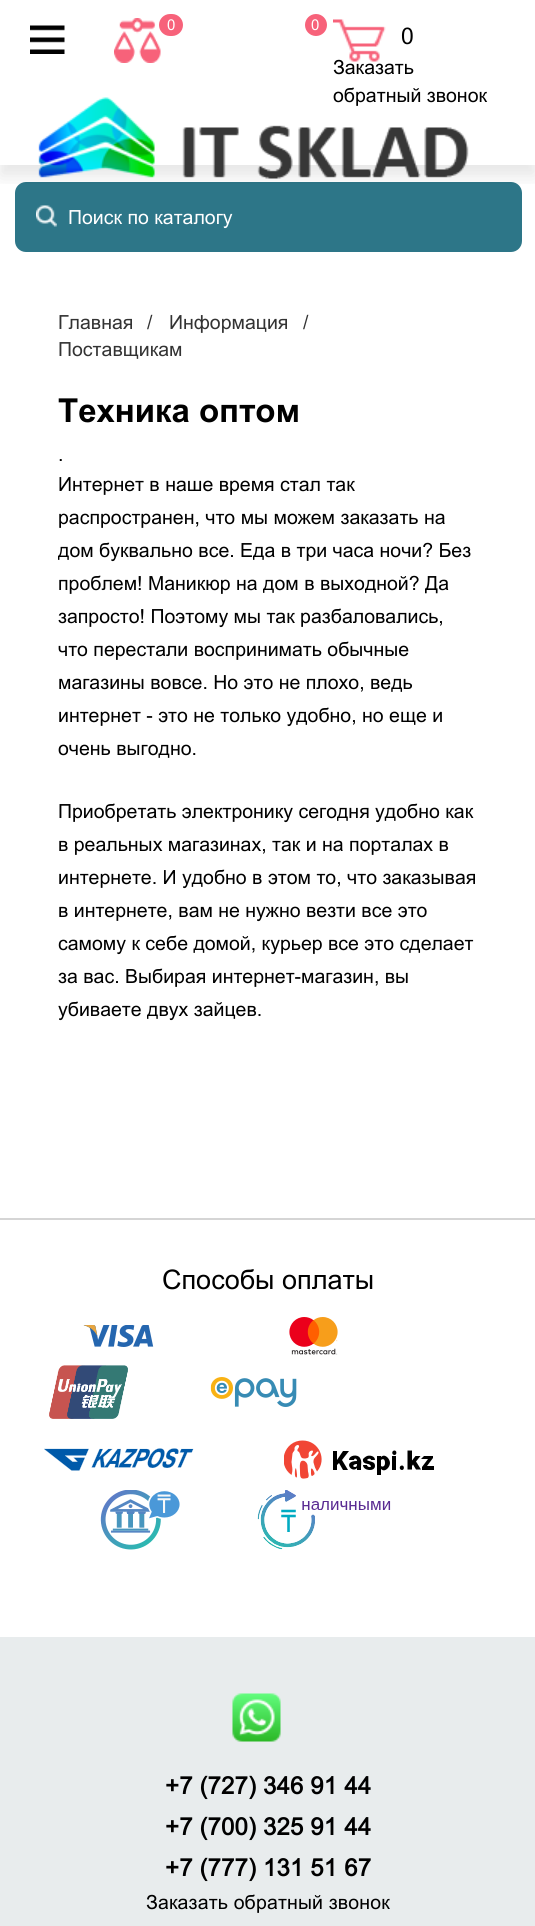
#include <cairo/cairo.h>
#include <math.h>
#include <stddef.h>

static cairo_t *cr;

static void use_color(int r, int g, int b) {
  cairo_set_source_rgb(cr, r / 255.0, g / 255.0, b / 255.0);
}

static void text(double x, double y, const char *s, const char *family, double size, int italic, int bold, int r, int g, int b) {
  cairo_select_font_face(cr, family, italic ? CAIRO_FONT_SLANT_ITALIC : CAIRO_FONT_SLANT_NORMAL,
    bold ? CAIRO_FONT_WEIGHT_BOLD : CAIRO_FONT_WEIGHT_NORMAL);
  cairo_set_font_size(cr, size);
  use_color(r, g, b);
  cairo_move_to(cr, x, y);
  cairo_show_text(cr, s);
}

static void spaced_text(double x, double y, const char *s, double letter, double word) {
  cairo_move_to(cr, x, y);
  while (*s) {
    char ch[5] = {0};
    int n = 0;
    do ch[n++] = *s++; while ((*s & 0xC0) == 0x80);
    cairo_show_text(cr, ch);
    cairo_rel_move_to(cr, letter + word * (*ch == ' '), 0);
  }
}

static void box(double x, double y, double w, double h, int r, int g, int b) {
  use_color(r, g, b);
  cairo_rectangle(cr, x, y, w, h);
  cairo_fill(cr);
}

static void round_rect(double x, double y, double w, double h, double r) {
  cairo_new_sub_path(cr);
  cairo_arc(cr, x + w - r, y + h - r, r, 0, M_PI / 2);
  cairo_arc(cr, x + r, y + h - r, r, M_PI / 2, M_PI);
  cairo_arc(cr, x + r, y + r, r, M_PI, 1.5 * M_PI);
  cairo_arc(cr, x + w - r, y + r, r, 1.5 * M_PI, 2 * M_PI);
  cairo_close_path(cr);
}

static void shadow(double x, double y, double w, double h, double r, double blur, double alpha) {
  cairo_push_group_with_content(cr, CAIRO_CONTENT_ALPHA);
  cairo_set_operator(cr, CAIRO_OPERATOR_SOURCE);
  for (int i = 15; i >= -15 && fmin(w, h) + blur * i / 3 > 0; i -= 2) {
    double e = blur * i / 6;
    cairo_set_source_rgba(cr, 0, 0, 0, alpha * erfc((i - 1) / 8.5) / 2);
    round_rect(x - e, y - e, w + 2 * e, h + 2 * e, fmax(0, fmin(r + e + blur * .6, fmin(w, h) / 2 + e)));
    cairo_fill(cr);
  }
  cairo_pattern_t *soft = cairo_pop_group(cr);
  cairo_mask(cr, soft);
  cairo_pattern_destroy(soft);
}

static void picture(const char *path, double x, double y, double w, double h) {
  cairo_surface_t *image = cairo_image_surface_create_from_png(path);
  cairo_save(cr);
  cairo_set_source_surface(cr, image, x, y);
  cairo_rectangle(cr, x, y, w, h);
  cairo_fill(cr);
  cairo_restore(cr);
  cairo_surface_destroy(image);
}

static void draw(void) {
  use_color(255, 255, 255);
  cairo_paint(cr);
  use_color(45, 118, 136);
  round_rect(15, 182, 507, 70, 11);
  cairo_fill(cr);
  cairo_save(cr);
  cairo_rectangle(cr, 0, 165, 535, 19);
  cairo_clip(cr);
  use_color(0, 0, 0);
  shadow(0, 11, 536, 165, 0, 9, 0.1);
  cairo_restore(cr);
  picture("img_01.png", 30, 25, 35, 29);
  picture("img_02.png", 114, 18, 47, 45);
  use_color(247, 98, 122);
  round_rect(160, 15, 22, 20, 10);
  cairo_fill_preserve(cr);
  cairo_stroke(cr);
  cairo_arc(cr, 316, 25, 10, 0, 2 * M_PI);
  cairo_fill_preserve(cr);
  cairo_stroke(cr);
  picture("img_03.png", 333, 19, 53, 43);
  picture("img_04.png", 38, 97, 431, 82);
  picture("img_05.png", 36, 205, 21, 22);
  box(0, 1218, 535, 2, 213, 213, 213);
  picture("img_06.png", 83, 1325, 71, 22);
  picture("img_07.png", 289, 1317, 49, 38);
  picture("img_08.png", 49, 1365, 79, 54);
  picture("img_09.png", 210, 1377, 87, 30);
  picture("img_10.png", 44, 1448, 150, 23);
  use_color(241, 70, 53);
  cairo_new_path(cr);
  cairo_move_to(cr, 297, 1474.5);
  cairo_line_to(cr, 296.5, 1470.5);
  cairo_curve_to(cr, 295.5, 1463.5, 294, 1474.5, 295.5, 1477);
  cairo_line_to(cr, 296.5, 1477.5);
  cairo_curve_to(cr, 297, 1477.5, 297, 1476.5, 297, 1474.5);
  cairo_close_path(cr);
  cairo_move_to(cr, 307.5, 1478);
  cairo_curve_to(cr, 309.5, 1477, 308.5, 1473.5, 308, 1471.5);
  cairo_line_to(cr, 307.5, 1465);
  cairo_curve_to(cr, 307, 1463, 306, 1462, 304.5, 1461);
  cairo_curve_to(cr, 298.5, 1459, 300, 1467.5, 300, 1471);
  cairo_curve_to(cr, 300, 1478.5, 300.5, 1479.5, 307.5, 1478);
  cairo_close_path(cr);
  cairo_fill(cr);
  cairo_save(cr);
  cairo_rectangle(cr, 284, 1430, 150, 60);
  cairo_clip(cr);
  cairo_new_path(cr);
  cairo_move_to(cr, 302.5, 1440.5);
  cairo_curve_to(cr, 284, 1440.5, 276.5, 1464.5, 291.5, 1475);
  cairo_line_to(cr, 292, 1473);
  cairo_curve_to(cr, 292.5, 1471, 292.5, 1468.5, 292, 1466);
  cairo_line_to(cr, 291.5, 1462);
  cairo_line_to(cr, 292, 1458);
  cairo_line_to(cr, 292.5, 1453.5);
  cairo_curve_to(cr, 293, 1451.5, 295, 1451, 294.5, 1449);
  cairo_curve_to(cr, 294, 1446, 298.5, 1443.5, 299, 1446);
  cairo_curve_to(cr, 299.5, 1448, 296, 1449.5, 298, 1451.5);
  cairo_line_to(cr, 298.5, 1451.5);
  cairo_curve_to(cr, 300.5, 1453.5, 300, 1456.5, 302, 1458);
  cairo_curve_to(cr, 303, 1458.5, 304.5, 1458.5, 305.5, 1458.5);
  cairo_curve_to(cr, 312, 1457.5, 306, 1453.5, 310.5, 1451);
  cairo_line_to(cr, 312, 1450.5);
  cairo_curve_to(cr, 315, 1451, 310, 1455.5, 311.5, 1456);
  cairo_curve_to(cr, 314, 1457, 316.5, 1451, 318, 1451.5);
  cairo_curve_to(cr, 319, 1452, 318.5, 1453, 318, 1454);
  cairo_curve_to(cr, 316, 1457, 313, 1458, 313.5, 1462.5);
  cairo_line_to(cr, 315, 1467.5);
  cairo_line_to(cr, 317, 1471.5);
  cairo_curve_to(cr, 327.5, 1459.5, 319, 1440.5, 302.5, 1440.5);
  cairo_close_path(cr);
  cairo_fill(cr);
  cairo_restore(cr);
  use_color(0, 0, 0);
  cairo_set_fill_rule(cr, CAIRO_FILL_RULE_EVEN_ODD);
  cairo_new_path(cr);
  cairo_move_to(cr, 339, 1463);
  cairo_line_to(cr, 337, 1465);
  cairo_line_to(cr, 337, 1470);
  cairo_line_to(cr, 333, 1470);
  cairo_line_to(cr, 333, 1451);
  cairo_line_to(cr, 337, 1451);
  cairo_line_to(cr, 337, 1460);
  cairo_line_to(cr, 343, 1451);
  cairo_line_to(cr, 349, 1451);
  cairo_line_to(cr, 342, 1460);
  cairo_line_to(cr, 348, 1470);
  cairo_line_to(cr, 343, 1470);
  cairo_close_path(cr);
  cairo_move_to(cr, 371, 1466);
  cairo_line_to(cr, 370, 1465);
  cairo_curve_to(cr, 369, 1463, 362, 1465, 363, 1459);
  cairo_curve_to(cr, 364, 1458, 365, 1457, 367, 1456);
  cairo_curve_to(cr, 370, 1455, 375, 1456, 375, 1460);
  cairo_line_to(cr, 371, 1460);
  cairo_curve_to(cr, 371, 1457, 364, 1460, 369, 1461);
  cairo_curve_to(cr, 372, 1462, 375, 1462, 375, 1466);
  cairo_curve_to(cr, 375, 1472, 363, 1471, 363, 1465);
  cairo_line_to(cr, 367, 1465);
  cairo_curve_to(cr, 367, 1467, 371, 1468, 371, 1466);
  cairo_close_path(cr);
  cairo_move_to(cr, 390, 1463);
  cairo_curve_to(cr, 390, 1467, 385, 1473, 381, 1469);
  cairo_line_to(cr, 381, 1475);
  cairo_line_to(cr, 377, 1475);
  cairo_line_to(cr, 377, 1456);
  cairo_line_to(cr, 381, 1456);
  cairo_line_to(cr, 381, 1457);
  cairo_curve_to(cr, 385, 1453, 390, 1459, 390, 1463);
  cairo_close_path(cr);
  cairo_move_to(cr, 357, 1470);
  cairo_line_to(cr, 357, 1468);
  cairo_curve_to(cr, 352, 1474, 342, 1461, 357, 1461);
  cairo_curve_to(cr, 357, 1458, 354, 1458, 354, 1460);
  cairo_line_to(cr, 349, 1460);
  cairo_curve_to(cr, 349, 1455, 358, 1454, 360, 1458);
  cairo_curve_to(cr, 362, 1461, 361, 1464, 361, 1467);
  cairo_line_to(cr, 361, 1470);
  cairo_close_path(cr);
  cairo_move_to(cr, 396, 1470);
  cairo_line_to(cr, 392, 1470);
  cairo_line_to(cr, 392, 1456);
  cairo_line_to(cr, 396, 1456);
  cairo_close_path(cr);
  cairo_move_to(cr, 427, 1466);
  cairo_line_to(cr, 434, 1466);
  cairo_line_to(cr, 434, 1470);
  cairo_line_to(cr, 422, 1470);
  cairo_line_to(cr, 422, 1467);
  cairo_line_to(cr, 428, 1459);
  cairo_line_to(cr, 421, 1459);
  cairo_line_to(cr, 424, 1456);
  cairo_line_to(cr, 433, 1456);
  cairo_line_to(cr, 433, 1458);
  cairo_close_path(cr);
  cairo_move_to(cr, 385, 1463);
  cairo_curve_to(cr, 385, 1458, 382, 1459, 381, 1460);
  cairo_line_to(cr, 381, 1466);
  cairo_curve_to(cr, 382, 1467, 385, 1467, 385, 1463);
  cairo_close_path(cr);
  cairo_move_to(cr, 355, 1467);
  cairo_curve_to(cr, 357, 1467, 357, 1465, 357, 1464);
  cairo_curve_to(cr, 353, 1464, 352, 1467, 355, 1467);
  cairo_close_path(cr);
  cairo_fill(cr);
  cairo_set_fill_rule(cr, CAIRO_FILL_RULE_WINDING);
  cairo_new_path(cr);
  cairo_move_to(cr, 402, 1470);
  cairo_curve_to(cr, 404.5, 1470, 404.5, 1465.5, 402, 1465.5);
  cairo_curve_to(cr, 399, 1465.5, 399, 1470, 402, 1470);
  cairo_close_path(cr);
  cairo_move_to(cr, 394.5, 1455);
  cairo_curve_to(cr, 397, 1455, 397, 1450.5, 394.5, 1450.5);
  cairo_curve_to(cr, 391.5, 1450.5, 391.5, 1455, 394.5, 1455);
  cairo_close_path(cr);
  cairo_move_to(cr, 413, 1464.5);
  cairo_line_to(cr, 412, 1466);
  cairo_line_to(cr, 412, 1469.5);
  cairo_line_to(cr, 407.5, 1469.5);
  cairo_line_to(cr, 407.5, 1450.5);
  cairo_line_to(cr, 412, 1450.5);
  cairo_line_to(cr, 412, 1460.5);
  cairo_line_to(cr, 415.5, 1456);
  cairo_line_to(cr, 420.5, 1456);
  cairo_line_to(cr, 416, 1461.5);
  cairo_line_to(cr, 421, 1469.5);
  cairo_line_to(cr, 416, 1469.5);
  cairo_close_path(cr);
  cairo_fill(cr);
  use_color(241, 70, 53);
  cairo_new_path(cr);
  cairo_move_to(cr, 314.5, 1474);
  cairo_curve_to(cr, 315, 1472.5, 311.5, 1466, 311, 1469.5);
  cairo_line_to(cr, 311, 1474);
  cairo_curve_to(cr, 311.5, 1476, 311.5, 1476.5, 313, 1475.5);
  cairo_curve_to(cr, 313.5, 1475, 314.5, 1474.5, 314.5, 1474);
  cairo_close_path(cr);
  cairo_fill(cr);
  picture("img_11.png", 100, 1490, 80, 60);
  picture("img_12.png", 257, 1490, 134, 60);
  box(0, 1637, 535, 289, 232, 236, 237);
  picture("img_13.png", 232, 1693, 49, 49);
  text(167, 30, "0", "Arial", 15, 0, 0, 255, 255, 255);
  text(311, 30, "0", "Arial", 15, 0, 0, 255, 255, 255);
  text(401, 44, "0", "Arial", 23, 0, 0, 0, 0, 0);
  text(333, 74, "Заказать", "Arial", 19.5, 0, 0, 0, 0, 0);
  text(333, 102, "обратный звонок", "Arial", 19.5, 0, 0, 0, 0, 0);
  text(68, 224, "Поиск по каталогу", "Arial", 19.5, 0, 0, 255, 255, 255);
  text(58, 329, "Главная", "Arial", 19.5, 0, 0, 51, 51, 51);
  text(147, 329, "/", "Arial", 19.5, 0, 0, 51, 51, 51);
  text(169, 329, "Информация", "Arial", 19.5, 0, 0, 51, 51, 51);
  text(303, 329, "/", "Arial", 19.5, 0, 0, 51, 51, 51);
  text(58, 356, "Поставщикам", "Arial", 19.5, 0, 0, 51, 51, 51);
  text(58, 422, "Техника оптом", "Arial", 33, 0, 1, 0, 0, 0);
  text(58, 461, ".", "Arial", 19.5, 0, 0, 0, 0, 0);
  text(58, 491, "Интернет в наше время стал так", "Arial", 19.5, 0, 0, 0, 0, 0);
  text(58, 524, "распространен, что мы можем заказать на", "Arial", 19.5, 0, 0, 0, 0, 0);
  text(58, 557, "дом буквально все. Еда в три часа ночи? Без", "Arial", 19.5, 0, 0, 0, 0, 0);
  text(58, 590, "проблем! Маникюр на дом в выходной? Да", "Arial", 19.5, 0, 0, 0, 0, 0);
  text(58, 623, "запросто! Поэтому мы так разбаловались,", "Arial", 19.5, 0, 0, 0, 0, 0);
  text(58, 656, "что перестали воспринимать обычные", "Arial", 19.5, 0, 0, 0, 0, 0);
  text(58, 689, "магазины вовсе. Но это не плохо, ведь", "Arial", 19.5, 0, 0, 0, 0, 0);
  text(58, 722, "интернет - это не только удобно, но еще и", "Arial", 19.5, 0, 0, 0, 0, 0);
  text(58, 755, "очень выгодно.", "Arial", 19.5, 0, 0, 0, 0, 0);
  text(58, 818, "Приобретать электронику сегодня удобно как", "Arial", 19.5, 0, 0, 0, 0, 0);
  text(58, 851, "в реальных магазинах, так и на порталах в", "Arial", 19.5, 0, 0, 0, 0, 0);
  text(58, 884, "интернете. И удобно в этом то, что заказывая", "Arial", 19.5, 0, 0, 0, 0, 0);
  text(58, 917, "в интернете, вам не нужно везти все это", "Arial", 19.5, 0, 0, 0, 0, 0);
  text(58, 950, "самому к себе домой, курьер все это сделает", "Arial", 19.5, 0, 0, 0, 0, 0);
  text(58, 983, "за вас. Выбирая интернет-магазин, вы", "Arial", 19.5, 0, 0, 0, 0, 0);
  text(58, 1016, "убиваете двух зайцев.", "Arial", 19.5, 0, 0, 0, 0, 0);
  text(162, 1289, "Способы оплаты", "Arial", 27, 0, 0, 0, 0, 0);
  cairo_select_font_face(cr, "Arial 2", CAIRO_FONT_SLANT_NORMAL, CAIRO_FONT_WEIGHT_BOLD);
  cairo_set_font_size(cr, 24);
  spaced_text(165, 1794, "+7 (727) 346 91 44", 0.15, 0);
  spaced_text(165, 1835, "+7 (700) 325 91 44", 0.15, 0);
  spaced_text(165, 1876, "+7 (777) 131 51 67", 0.15, 0);
  cairo_select_font_face(cr, "Arial", CAIRO_FONT_SLANT_NORMAL, CAIRO_FONT_WEIGHT_NORMAL);
  cairo_set_font_size(cr, 19.5);
  spaced_text(146, 1909, "Заказать обратный звонок", 0.15, 0);
}

int main(void) {
  cairo_surface_t *surface = cairo_image_surface_create(CAIRO_FORMAT_RGB24, 535, 1926);
  cr = cairo_create(surface);
  cairo_font_options_t *options = cairo_font_options_create();
  cairo_font_options_set_hint_metrics(options, CAIRO_HINT_METRICS_OFF);
  cairo_font_options_set_hint_style(options, CAIRO_HINT_STYLE_NONE);
  cairo_set_font_options(cr, options);
  cairo_set_miter_limit(cr, 4);
  draw();
  cairo_surface_write_to_png(surface, "out.png");
  cairo_font_options_destroy(options);
  cairo_destroy(cr);
  cairo_surface_destroy(surface);
  return 0;
}
